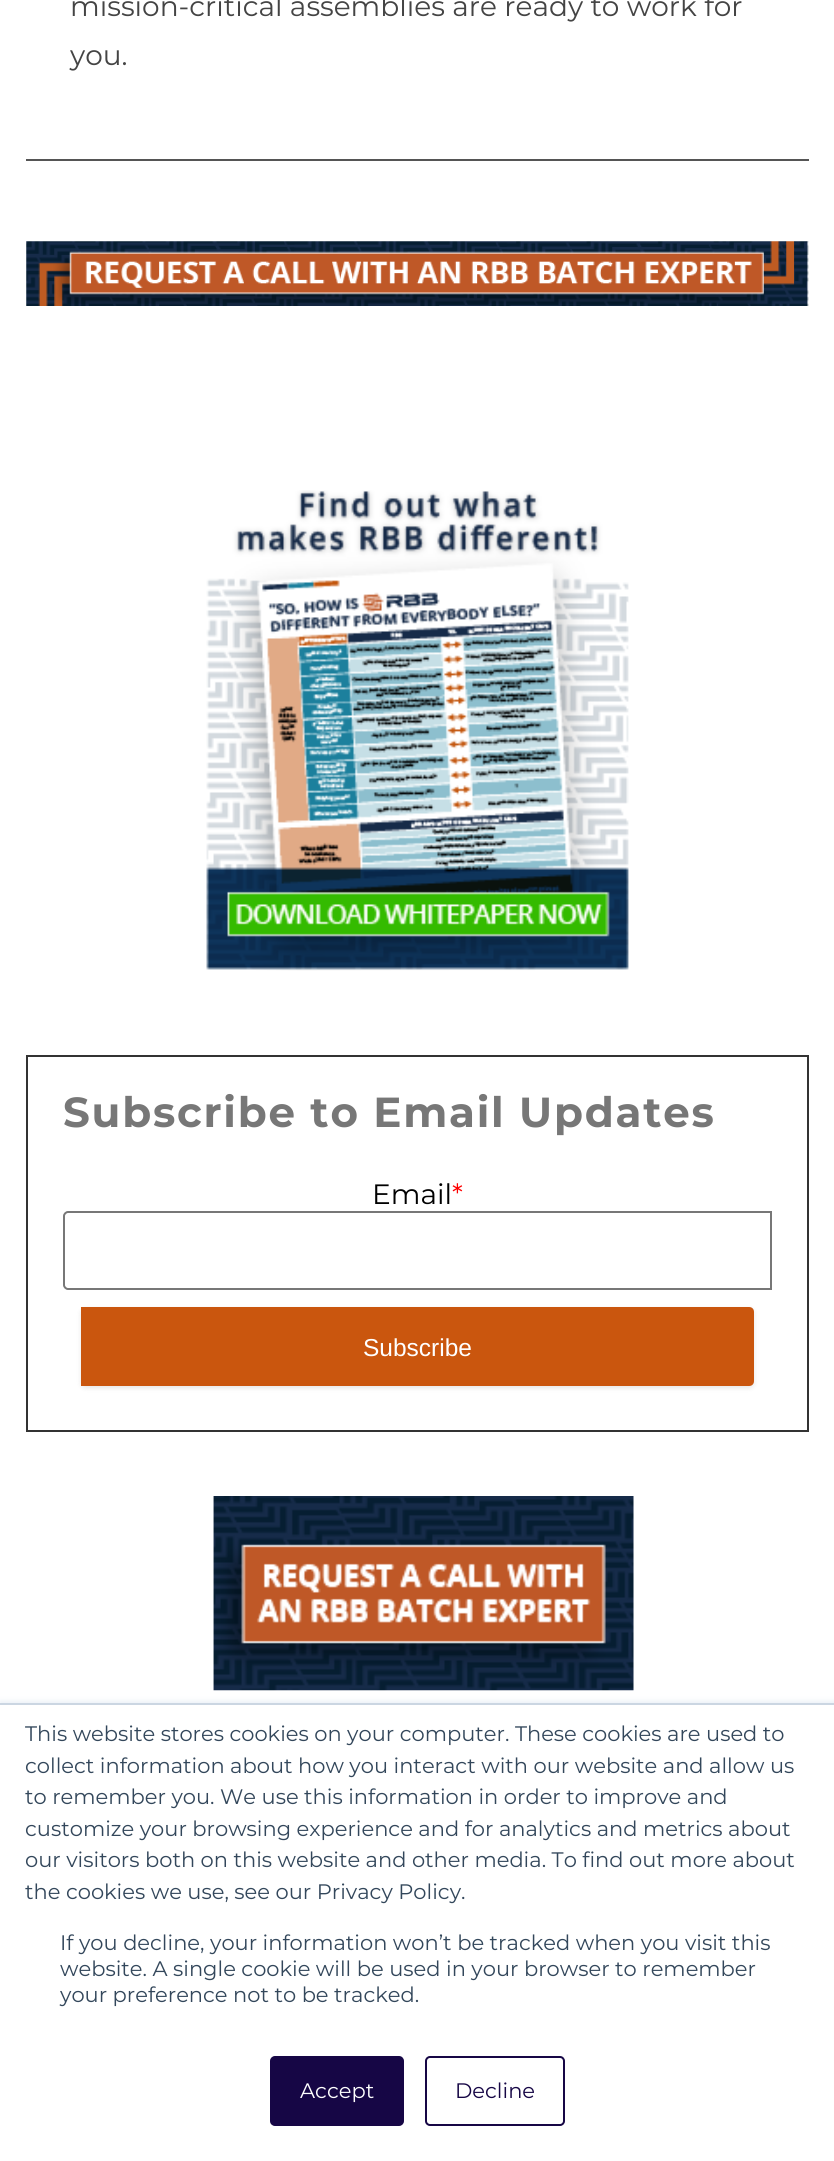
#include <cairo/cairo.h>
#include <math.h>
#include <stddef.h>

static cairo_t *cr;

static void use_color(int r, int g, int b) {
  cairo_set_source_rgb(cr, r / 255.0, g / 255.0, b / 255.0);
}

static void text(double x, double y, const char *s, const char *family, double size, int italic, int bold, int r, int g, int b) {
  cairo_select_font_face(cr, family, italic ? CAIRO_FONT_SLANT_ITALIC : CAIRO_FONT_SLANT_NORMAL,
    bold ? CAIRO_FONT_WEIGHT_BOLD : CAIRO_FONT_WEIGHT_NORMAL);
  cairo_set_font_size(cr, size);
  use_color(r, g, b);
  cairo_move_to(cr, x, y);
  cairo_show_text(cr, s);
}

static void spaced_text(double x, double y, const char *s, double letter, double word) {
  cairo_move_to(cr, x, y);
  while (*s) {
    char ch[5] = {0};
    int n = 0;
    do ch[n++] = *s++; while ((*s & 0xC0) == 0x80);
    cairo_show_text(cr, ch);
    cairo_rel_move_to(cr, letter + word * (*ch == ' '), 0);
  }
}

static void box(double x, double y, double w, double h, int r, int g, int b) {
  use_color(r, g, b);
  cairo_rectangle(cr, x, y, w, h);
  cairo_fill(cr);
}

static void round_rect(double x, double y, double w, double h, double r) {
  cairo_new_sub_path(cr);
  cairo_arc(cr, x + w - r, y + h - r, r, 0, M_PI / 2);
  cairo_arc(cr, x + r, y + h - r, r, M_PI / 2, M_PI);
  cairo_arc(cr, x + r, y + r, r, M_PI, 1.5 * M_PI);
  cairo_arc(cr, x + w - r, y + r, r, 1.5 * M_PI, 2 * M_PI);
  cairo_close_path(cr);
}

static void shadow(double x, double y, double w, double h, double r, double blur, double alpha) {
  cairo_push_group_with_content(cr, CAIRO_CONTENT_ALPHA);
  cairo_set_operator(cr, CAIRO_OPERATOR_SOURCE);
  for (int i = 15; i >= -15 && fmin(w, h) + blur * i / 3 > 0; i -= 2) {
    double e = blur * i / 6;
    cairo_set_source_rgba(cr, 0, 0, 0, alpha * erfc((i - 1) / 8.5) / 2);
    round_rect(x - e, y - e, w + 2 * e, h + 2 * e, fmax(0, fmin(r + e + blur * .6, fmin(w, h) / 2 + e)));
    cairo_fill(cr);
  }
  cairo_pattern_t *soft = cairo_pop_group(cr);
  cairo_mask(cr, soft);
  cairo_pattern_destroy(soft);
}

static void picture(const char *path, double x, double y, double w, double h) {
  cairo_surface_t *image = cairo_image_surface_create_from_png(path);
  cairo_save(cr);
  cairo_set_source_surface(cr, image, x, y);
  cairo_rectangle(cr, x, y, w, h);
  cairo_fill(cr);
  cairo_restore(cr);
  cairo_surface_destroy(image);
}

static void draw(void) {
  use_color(255, 255, 255);
  cairo_paint(cr);
  box(26, 159, 783, 2, 85, 85, 85);
  picture("img_01.png", 26, 241, 783, 65);
  picture("img_02.png", 206, 490, 423, 481);
  cairo_rectangle(cr, 27, 1056, 781, 375);
  use_color(51, 51, 51);
  cairo_stroke(cr);
  cairo_new_path(cr);
  cairo_move_to(cr, 68, 1212);
  cairo_line_to(cr, 771, 1212);
  cairo_line_to(cr, 771, 1289);
  cairo_line_to(cr, 68, 1289);
  cairo_curve_to(cr, 66, 1289, 64, 1287, 64, 1285);
  cairo_line_to(cr, 64, 1216);
  cairo_curve_to(cr, 64, 1214, 66, 1212, 68, 1212);
  cairo_close_path(cr);
  use_color(119, 119, 119);
  cairo_stroke(cr);
  use_color(0, 0, 0);
  shadow(81, 1309, 673, 79, 5, 2.5, 0.1);
  use_color(202, 86, 14);
  cairo_new_path(cr);
  cairo_move_to(cr, 81, 1307);
  cairo_line_to(cr, 749, 1307);
  cairo_curve_to(cr, 752, 1307, 754, 1309, 754, 1312);
  cairo_line_to(cr, 754, 1381);
  cairo_curve_to(cr, 754, 1384, 752, 1386, 749, 1386);
  cairo_line_to(cr, 81, 1386);
  cairo_close_path(cr);
  cairo_fill(cr);
  picture("img_03.png", 213, 1496, 421, 195);
  use_color(234, 240, 246);
  shadow(0, 1701, 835, 459, 0, 2.5, 1);
  box(0, 1705, 834, 456, 255, 255, 255);
  box(0, 1703, 834, 2, 203, 214, 226);
  use_color(22, 6, 69);
  round_rect(271, 2057, 132, 68, 4);
  cairo_fill_preserve(cr);
  cairo_stroke(cr);
  round_rect(426, 2057, 138, 68, 4);
  cairo_stroke(cr);
  text(70, 16, "mission-critical assemblies are ready to work for", "Montserrat", 28, 0, 0, 68, 68, 68);
  text(70, 65, "you.", "Montserrat", 28, 0, 0, 68, 68, 68);
  cairo_select_font_face(cr, "Montserrat", CAIRO_FONT_SLANT_NORMAL, CAIRO_FONT_WEIGHT_BOLD);
  cairo_set_font_size(cr, 42);
  use_color(119, 119, 119);
  spaced_text(63, 1127, "Subscribe to Email Updates", 1.75, 0);
  text(372, 1204, "Email", "Montserrat", 28, 0, 0, 0, 0, 0);
  text(452, 1204, "*", "Montserrat", 28, 0, 0, 255, 0, 0);
  text(363, 1356, "Subscribe", "Liberation Sans", 24.5, 0, 0, 255, 255, 255);
  text(25, 1741, "This website stores cookies on your computer. These cookies are used to", "Montserrat", 21, 0, 0, 51, 71, 91);
  text(25, 1773, "collect information about how you interact with our website and allow us", "Montserrat", 21, 0, 0, 51, 71, 91);
  text(25, 1804, "to remember you. We use this information in order to improve and", "Montserrat", 21, 0, 0, 51, 71, 91);
  text(25, 1836, "customize your browsing experience and for analytics and metrics about", "Montserrat", 21, 0, 0, 51, 71, 91);
  text(25, 1867, "our visitors both on this website and other media. To find out more about", "Montserrat", 21, 0, 0, 51, 71, 91);
  text(25, 1899, "the cookies we use, see our Privacy Policy.", "Montserrat", 21, 0, 0, 51, 71, 91);
  text(60, 1950, "If you decline, your information won’t be tracked when you visit this", "Montserrat", 21, 0, 0, 51, 71, 91);
  text(60, 1976, "website. A single cookie will be used in your browser to remember", "Montserrat", 21, 0, 0, 51, 71, 91);
  text(60, 2002, "your preference not to be tracked.", "Montserrat", 21, 0, 0, 51, 71, 91);
  text(300, 2098, "Accept", "Montserrat", 21, 0, 0, 255, 255, 255);
  text(455, 2098, "Decline", "Montserrat", 21, 0, 0, 22, 6, 69);
}

int main(void) {
  cairo_surface_t *surface = cairo_image_surface_create(CAIRO_FORMAT_RGB24, 834, 2161);
  cr = cairo_create(surface);
  cairo_font_options_t *options = cairo_font_options_create();
  cairo_font_options_set_hint_metrics(options, CAIRO_HINT_METRICS_OFF);
  cairo_font_options_set_hint_style(options, CAIRO_HINT_STYLE_NONE);
  cairo_set_font_options(cr, options);
  cairo_set_miter_limit(cr, 4);
  draw();
  cairo_surface_write_to_png(surface, "out.png");
  cairo_font_options_destroy(options);
  cairo_destroy(cr);
  cairo_surface_destroy(surface);
  return 0;
}
